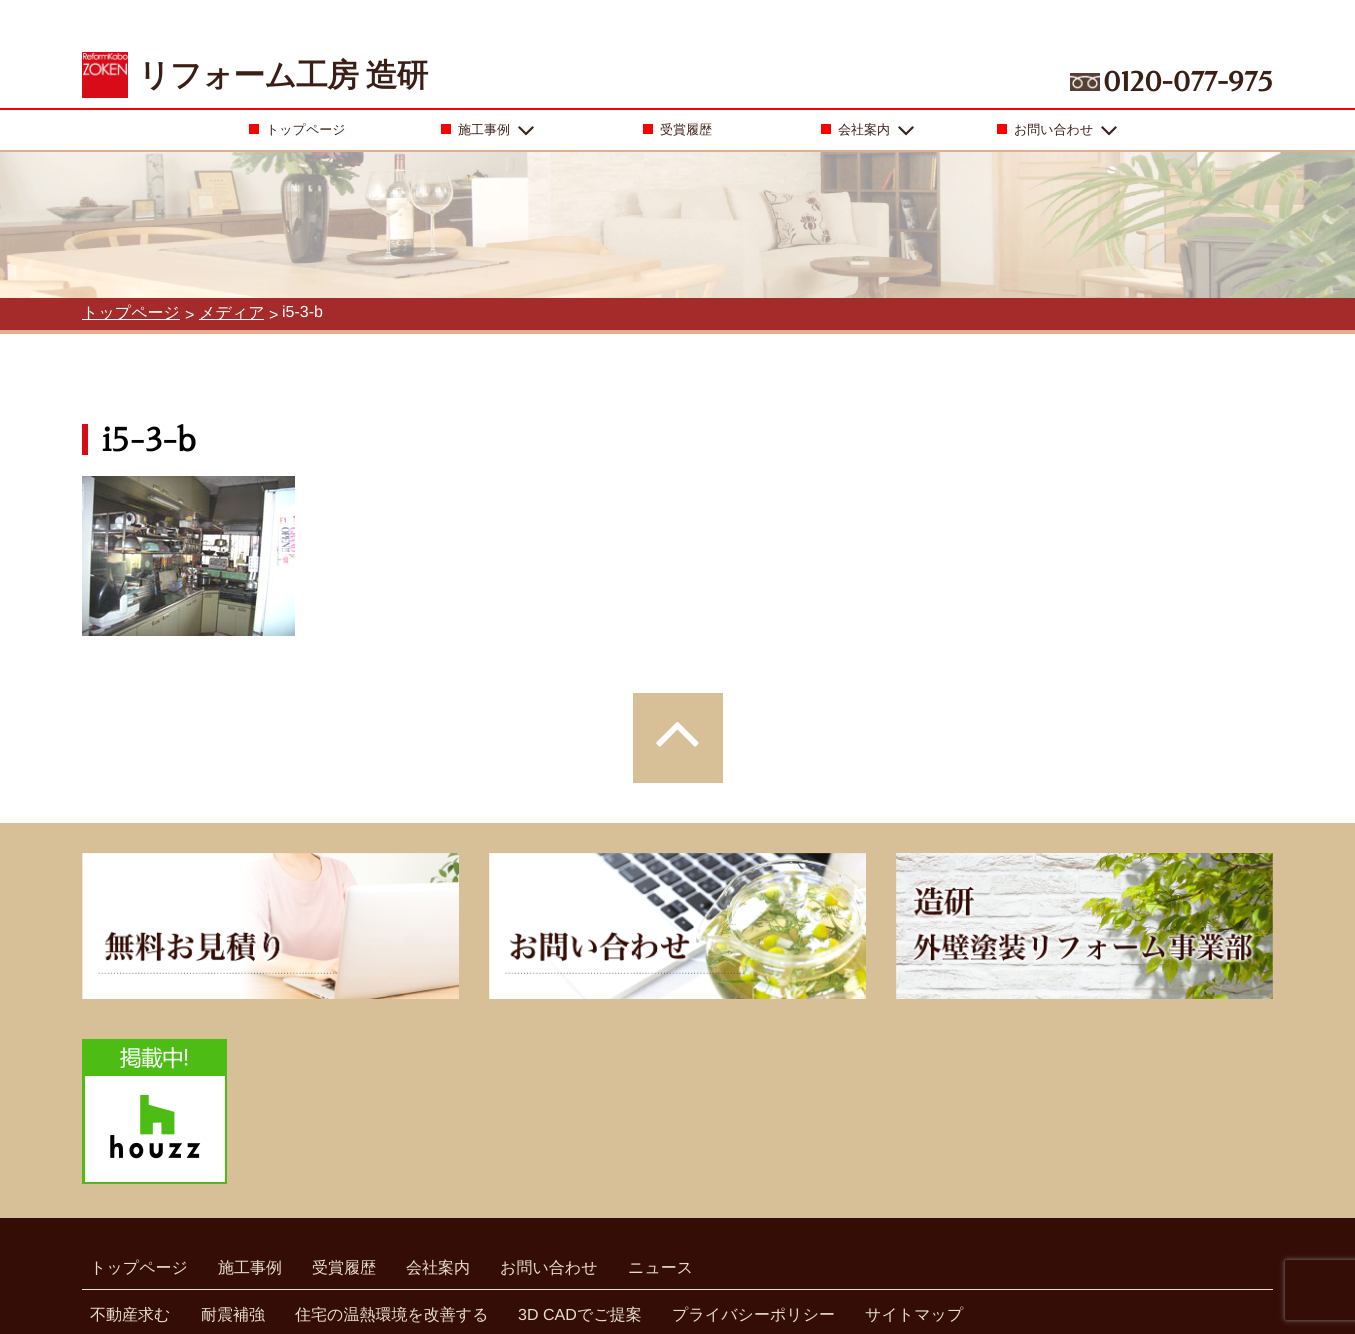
#include <cairo/cairo.h>
#include <math.h>
#include <stddef.h>

static cairo_t *cr;

static void use_color(int r, int g, int b) {
  cairo_set_source_rgb(cr, r / 255.0, g / 255.0, b / 255.0);
}

static void text(double x, double y, const char *s, const char *family, double size, int italic, int bold, int r, int g, int b) {
  cairo_select_font_face(cr, family, italic ? CAIRO_FONT_SLANT_ITALIC : CAIRO_FONT_SLANT_NORMAL,
    bold ? CAIRO_FONT_WEIGHT_BOLD : CAIRO_FONT_WEIGHT_NORMAL);
  cairo_set_font_size(cr, size);
  use_color(r, g, b);
  cairo_move_to(cr, x, y);
  cairo_show_text(cr, s);
}

static void spaced_text(double x, double y, const char *s, double letter, double word) {
  cairo_move_to(cr, x, y);
  while (*s) {
    char ch[5] = {0};
    int n = 0;
    do ch[n++] = *s++; while ((*s & 0xC0) == 0x80);
    cairo_show_text(cr, ch);
    cairo_rel_move_to(cr, letter + word * (*ch == ' '), 0);
  }
}

static void box(double x, double y, double w, double h, int r, int g, int b) {
  use_color(r, g, b);
  cairo_rectangle(cr, x, y, w, h);
  cairo_fill(cr);
}

static void round_rect(double x, double y, double w, double h, double r) {
  cairo_new_sub_path(cr);
  cairo_arc(cr, x + w - r, y + h - r, r, 0, M_PI / 2);
  cairo_arc(cr, x + r, y + h - r, r, M_PI / 2, M_PI);
  cairo_arc(cr, x + r, y + r, r, M_PI, 1.5 * M_PI);
  cairo_arc(cr, x + w - r, y + r, r, 1.5 * M_PI, 2 * M_PI);
  cairo_close_path(cr);
}

static void shadow(double x, double y, double w, double h, double r, double blur, double alpha) {
  cairo_push_group_with_content(cr, CAIRO_CONTENT_ALPHA);
  cairo_set_operator(cr, CAIRO_OPERATOR_SOURCE);
  for (int i = 15; i >= -15 && fmin(w, h) + blur * i / 3 > 0; i -= 2) {
    double e = blur * i / 6;
    cairo_set_source_rgba(cr, 0, 0, 0, alpha * erfc((i - 1) / 8.5) / 2);
    round_rect(x - e, y - e, w + 2 * e, h + 2 * e, fmax(0, fmin(r + e + blur * .6, fmin(w, h) / 2 + e)));
    cairo_fill(cr);
  }
  cairo_pattern_t *soft = cairo_pop_group(cr);
  cairo_mask(cr, soft);
  cairo_pattern_destroy(soft);
}

static void picture(const char *path, double x, double y, double w, double h) {
  cairo_surface_t *image = cairo_image_surface_create_from_png(path);
  cairo_save(cr);
  cairo_set_source_surface(cr, image, x, y);
  cairo_rectangle(cr, x, y, w, h);
  cairo_fill(cr);
  cairo_restore(cr);
  cairo_surface_destroy(image);
}

static void draw(void) {
  use_color(255, 255, 255);
  cairo_paint(cr);
  picture("img_01.png", 82, 52, 46, 46);
  picture("img_02.png", 1070, 73, 30, 18);
  box(0, 108, 1355, 2, 255, 0, 0);
  box(0, 150, 1355, 2, 231, 172, 142);
  box(249, 124, 10, 10, 255, 0, 0);
  box(441, 124, 10, 10, 255, 0, 0);
  picture("img_03.png", 518, 126, 16, 10);
  box(643, 124, 10, 10, 255, 0, 0);
  box(821, 124, 10, 10, 255, 0, 0);
  picture("img_03.png", 898, 126, 16, 10);
  box(997, 124, 10, 10, 255, 0, 0);
  picture("img_03.png", 1101, 126, 16, 10);
  picture("img_04.png", 0, 152, 1355, 146);
  box(0, 298, 1355, 32, 165, 42, 42);
  box(0, 330, 1355, 4, 231, 172, 142);
  box(82, 319, 98, 1, 255, 255, 255);
  box(199, 319, 65, 1, 255, 255, 255);
  box(82, 424, 6, 31, 215, 12, 24);
  picture("img_05.png", 82, 476, 213, 160);
  box(633, 693, 90, 90, 215, 191, 151);
  picture("img_06.png", 656, 722, 43, 25);
  box(0, 1218, 1355, 116, 52, 13, 6);
  box(0, 823, 1355, 395, 215, 191, 151);
  picture("img_07.png", 82, 853, 377, 146);
  picture("img_08.png", 489, 853, 377, 146);
  picture("img_09.png", 896, 853, 377, 146);
  picture("img_10.png", 82, 1039, 145, 145);
  box(82, 1289, 1191, 1, 234, 223, 205);
  cairo_save(cr);
  cairo_set_fill_rule(cr, CAIRO_FILL_RULE_EVEN_ODD);
  cairo_new_path(cr);
  cairo_move_to(cr, 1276, 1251);
  cairo_line_to(cr, 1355, 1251);
  cairo_line_to(cr, 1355, 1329);
  cairo_line_to(cr, 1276, 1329);
  cairo_close_path(cr);
  cairo_move_to(cr, 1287, 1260);
  cairo_line_to(cr, 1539, 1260);
  cairo_curve_to(cr, 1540, 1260, 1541, 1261, 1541, 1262);
  cairo_line_to(cr, 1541, 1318);
  cairo_curve_to(cr, 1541, 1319, 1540, 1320, 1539, 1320);
  cairo_line_to(cr, 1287, 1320);
  cairo_curve_to(cr, 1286, 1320, 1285, 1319, 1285, 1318);
  cairo_line_to(cr, 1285, 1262);
  cairo_curve_to(cr, 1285, 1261, 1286, 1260, 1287, 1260);
  cairo_close_path(cr);
  cairo_clip(cr);
  use_color(128, 128, 128);
  shadow(1285, 1260, 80, 60, 2, 2.5, 1);
  cairo_restore(cr);
  cairo_select_font_face(cr, "WenQuanYi Zen Hei", CAIRO_FONT_SLANT_NORMAL, CAIRO_FONT_WEIGHT_BOLD);
  cairo_set_font_size(cr, 32);
  use_color(59, 30, 22);
  spaced_text(138, 86, "リフォーム工房 造研", -1, -1);
  text(1103, 91, "0120-077-975", "Federo", 29, 0, 1, 59, 30, 22);
  text(266, 134, "トップページ", "WenQuanYi Zen Hei Medium", 13, 0, 0, 59, 30, 22);
  text(458, 134, "施工事例", "WenQuanYi Zen Hei Medium", 13, 0, 0, 59, 30, 22);
  text(660, 134, "受賞履歴", "WenQuanYi Zen Hei Medium", 13, 0, 0, 59, 30, 22);
  text(838, 134, "会社案内", "WenQuanYi Zen Hei Medium", 13, 0, 0, 59, 30, 22);
  text(1014, 134, "お問い合わせ", "WenQuanYi Zen Hei Medium", 13, 0, 0, 59, 30, 22);
  text(82, 318, "トップページ", "WenQuanYi Zen Hei Medium", 16, 0, 0, 255, 255, 255);
  text(185, 320, ">", "Liberation Sans", 16, 0, 0, 255, 255, 255);
  text(199, 318, "メディア", "WenQuanYi Zen Hei Medium", 16, 0, 0, 255, 255, 255);
  text(269, 320, ">", "Liberation Sans", 16, 0, 0, 255, 255, 255);
  text(282, 317, "i5-3-b", "Liberation Sans", 16, 0, 0, 255, 255, 255);
  text(102, 451, "i5-3-b", "Sawarabi Mincho", 32, 0, 1, 0, 0, 0);
  text(90, 1273, "トップページ", "WenQuanYi Zen Hei Medium", 16, 0, 0, 234, 223, 205);
  text(218, 1273, "施工事例", "WenQuanYi Zen Hei Medium", 16, 0, 0, 234, 223, 205);
  text(312, 1273, "受賞履歴", "WenQuanYi Zen Hei Medium", 16, 0, 0, 234, 223, 205);
  text(406, 1273, "会社案内", "WenQuanYi Zen Hei Medium", 16, 0, 0, 234, 223, 205);
  text(500, 1273, "お問い合わせ", "WenQuanYi Zen Hei Medium", 16, 0, 0, 234, 223, 205);
  text(628, 1273, "ニュース", "WenQuanYi Zen Hei Medium", 16, 0, 0, 234, 223, 205);
  text(90, 1320, "不動産求む", "WenQuanYi Zen Hei Medium", 16, 0, 0, 234, 223, 205);
  text(201, 1320, "耐震補強", "WenQuanYi Zen Hei Medium", 16, 0, 0, 234, 223, 205);
  text(295, 1320, "住宅の温熱環境を改善する", "WenQuanYi Zen Hei Medium", 16, 0, 0, 234, 223, 205);
  text(518, 1320, "3D CAD", "Liberation Sans", 16, 0, 0, 234, 223, 205);
  text(577, 1320, "でご提案", "WenQuanYi Zen Hei Medium", 16, 0, 0, 234, 223, 205);
  text(672, 1320, "プライバシーポリシー", "WenQuanYi Zen Hei Medium", 16, 0, 0, 234, 223, 205);
  text(865, 1320, "サイトマップ", "WenQuanYi Zen Hei Medium", 16, 0, 0, 234, 223, 205);
}

int main(void) {
  cairo_surface_t *surface = cairo_image_surface_create(CAIRO_FORMAT_RGB24, 1355, 1334);
  cr = cairo_create(surface);
  cairo_font_options_t *options = cairo_font_options_create();
  cairo_font_options_set_hint_metrics(options, CAIRO_HINT_METRICS_OFF);
  cairo_font_options_set_hint_style(options, CAIRO_HINT_STYLE_NONE);
  cairo_set_font_options(cr, options);
  cairo_set_miter_limit(cr, 4);
  draw();
  cairo_surface_write_to_png(surface, "out.png");
  cairo_font_options_destroy(options);
  cairo_destroy(cr);
  cairo_surface_destroy(surface);
  return 0;
}
